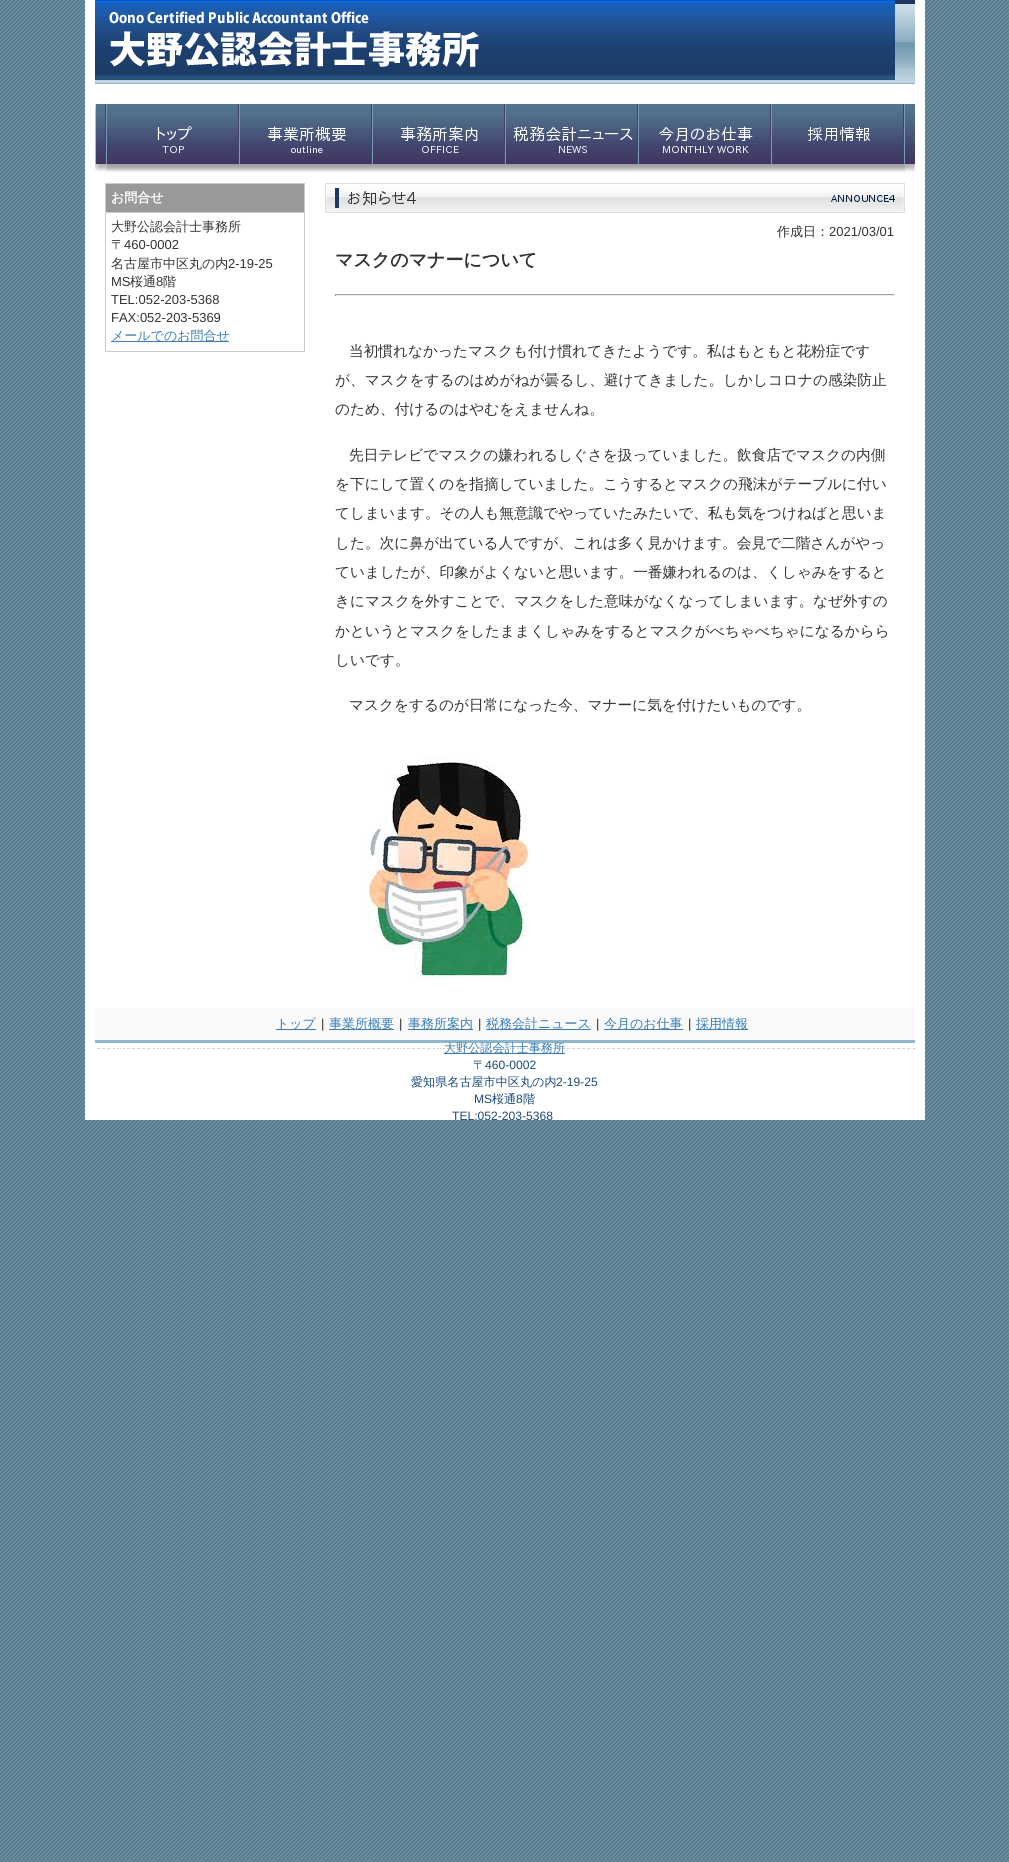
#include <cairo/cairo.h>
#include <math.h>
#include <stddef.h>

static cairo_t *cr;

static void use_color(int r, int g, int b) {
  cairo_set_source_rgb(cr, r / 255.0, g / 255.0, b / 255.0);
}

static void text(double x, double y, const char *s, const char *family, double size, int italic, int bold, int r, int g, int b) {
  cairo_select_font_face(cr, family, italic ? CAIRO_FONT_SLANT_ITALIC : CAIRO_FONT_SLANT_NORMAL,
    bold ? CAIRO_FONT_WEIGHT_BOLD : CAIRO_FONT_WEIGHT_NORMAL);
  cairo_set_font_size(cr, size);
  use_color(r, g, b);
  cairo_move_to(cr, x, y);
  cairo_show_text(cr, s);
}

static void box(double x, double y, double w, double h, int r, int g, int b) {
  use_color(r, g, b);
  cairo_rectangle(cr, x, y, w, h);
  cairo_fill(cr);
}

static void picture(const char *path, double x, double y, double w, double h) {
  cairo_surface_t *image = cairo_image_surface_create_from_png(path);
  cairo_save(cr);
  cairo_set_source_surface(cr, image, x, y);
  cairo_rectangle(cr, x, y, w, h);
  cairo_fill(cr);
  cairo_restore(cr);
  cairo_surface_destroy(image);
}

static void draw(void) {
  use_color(255, 255, 255);
  cairo_paint(cr);
  picture("img_01.png", 0, 0, 1009, 1862);
  box(85, 0, 840, 1120, 255, 255, 255);
  picture("img_02.png", 95, 0, 820, 84);
  picture("img_03.png", 95, 0, 800, 80);
  picture("img_04.png", 95, 104, 820, 68);
  picture("img_05.png", 107, 104, 133, 69);
  picture("img_06.png", 240, 104, 133, 69);
  picture("img_07.png", 373, 104, 133, 69);
  picture("img_08.png", 506, 104, 133, 69);
  picture("img_09.png", 639, 104, 133, 69);
  picture("img_10.png", 772, 104, 133, 69);
  box(106, 184, 198, 28, 153, 153, 153);
  box(105, 183, 200, 1, 204, 204, 204);
  box(105, 212, 200, 1, 204, 204, 204);
  box(304, 212, 1, 140, 204, 204, 204);
  box(304, 183, 1, 30, 204, 204, 204);
  box(105, 351, 200, 1, 204, 204, 204);
  box(105, 212, 1, 140, 204, 204, 204);
  box(105, 183, 1, 30, 204, 204, 204);
  box(111, 341, 118, 1, 57, 126, 183);
  picture("img_11.png", 325, 183, 580, 30);
  box(335, 294, 560, 1, 159, 159, 159);
  box(894, 294, 1, 2, 238, 238, 238);
  box(335, 295, 560, 1, 238, 238, 238);
  box(335, 294, 1, 2, 159, 159, 159);
  picture("img_12.png", 367, 757, 166, 224);
  box(95, 1008, 820, 32, 249, 249, 249);
  box(276, 1029, 40, 1, 57, 126, 183);
  box(329, 1029, 65, 1, 57, 126, 183);
  box(408, 1029, 65, 1, 57, 126, 183);
  box(486, 1029, 105, 1, 57, 126, 183);
  box(604, 1029, 79, 1, 57, 126, 183);
  box(696, 1029, 52, 1, 57, 126, 183);
  picture("img_13.png", 95, 1040, 820, 9);
  box(444, 1053, 121, 1, 57, 126, 183);
  text(111, 202, "お問合せ", "WenQuanYi Zen Hei", 13, 0, 1, 255, 255, 255);
  text(111, 231, "大野公認会計士事務所", "WenQuanYi Zen Hei Medium", 13, 0, 0, 51, 51, 51);
  text(111, 249, "〒", "WenQuanYi Zen Hei Medium", 13, 0, 0, 51, 51, 51);
  text(124, 249, "460-0002", "Liberation Sans", 13, 0, 0, 51, 51, 51);
  text(111, 268, "名古屋市中区丸の内", "WenQuanYi Zen Hei Medium", 13, 0, 0, 51, 51, 51);
  text(228, 268, "2-19-25", "Liberation Sans", 13, 0, 0, 51, 51, 51);
  text(111, 286, "MS", "Liberation Sans", 13, 0, 0, 51, 51, 51);
  text(130, 286, "桜通", "WenQuanYi Zen Hei Medium", 13, 0, 0, 51, 51, 51);
  text(156, 286, "8", "Liberation Sans", 13, 0, 0, 51, 51, 51);
  text(163, 286, "階", "WenQuanYi Zen Hei Medium", 13, 0, 0, 51, 51, 51);
  text(111, 304, "TEL:052-203-5368", "Liberation Sans", 13, 0, 0, 51, 51, 51);
  text(111, 322, "FAX:052-203-5369", "Liberation Sans", 13, 0, 0, 51, 51, 51);
  text(111, 340, "メールでのお問合せ", "WenQuanYi Zen Hei Medium", 13, 0, 0, 57, 126, 183);
  text(777, 236, "作成日：", "WenQuanYi Zen Hei Medium", 13, 0, 0, 51, 51, 51);
  text(829, 236, "2021/03/01", "Liberation Sans", 13, 0, 0, 51, 51, 51);
  text(335, 266, "マスクのマナーについて", "WenQuanYi Zen Hei", 18, 0, 1, 51, 51, 51);
  text(349, 356, "当初慣れなかったマスクも付け慣れてきたようです。私はもともと花粉症です", "WenQuanYi Zen Hei Medium", 14.65, 0, 0, 51, 51, 51);
  text(335, 385, "が、マスクをするのはめがねが曇るし、避けてきました。しかしコロナの感染防止", "WenQuanYi Zen Hei Medium", 14.65, 0, 0, 51, 51, 51);
  text(335, 414, "のため、付けるのはやむをえませんね。", "WenQuanYi Zen Hei Medium", 14.65, 0, 0, 51, 51, 51);
  text(349, 460, "先日テレビでマスクの嫌われるしぐさを扱っていました。飲食店でマスクの内側", "WenQuanYi Zen Hei Medium", 14.65, 0, 0, 51, 51, 51);
  text(335, 489, "を下にして置くのを指摘していました。こうするとマスクの飛沫がテーブルに付い", "WenQuanYi Zen Hei Medium", 14.65, 0, 0, 51, 51, 51);
  text(335, 518, "てしまいます。その人も無意識でやっていたみたいで、私も気をつけねばと思いま", "WenQuanYi Zen Hei Medium", 14.65, 0, 0, 51, 51, 51);
  text(335, 548, "した。次に鼻が出ている人ですが、これは多く見かけます。会見で二階さんがやっ", "WenQuanYi Zen Hei Medium", 14.65, 0, 0, 51, 51, 51);
  text(335, 577, "ていましたが、印象がよくないと思います。一番嫌われるのは、くしゃみをすると", "WenQuanYi Zen Hei Medium", 14.65, 0, 0, 51, 51, 51);
  text(335, 606, "きにマスクを外すことで、マスクをした意味がなくなってしまいます。なぜ外すの", "WenQuanYi Zen Hei Medium", 14.65, 0, 0, 51, 51, 51);
  text(335, 636, "かというとマスクをしたままくしゃみをするとマスクがべちゃべちゃになるからら", "WenQuanYi Zen Hei Medium", 14.65, 0, 0, 51, 51, 51);
  text(335, 665, "しいです。", "WenQuanYi Zen Hei Medium", 14.65, 0, 0, 51, 51, 51);
  text(349, 710, "マスクをするのが日常になった今、マナーに気を付けたいものです。", "WenQuanYi Zen Hei Medium", 14.65, 0, 0, 51, 51, 51);
  text(276, 1028, "トップ", "WenQuanYi Zen Hei Medium", 13, 0, 0, 57, 126, 183);
  text(321, 1028, "|", "Liberation Sans", 13, 0, 0, 51, 51, 51);
  text(329, 1028, "事業所概要", "WenQuanYi Zen Hei Medium", 13, 0, 0, 57, 126, 183);
  text(399, 1028, "|", "Liberation Sans", 13, 0, 0, 51, 51, 51);
  text(408, 1028, "事務所案内", "WenQuanYi Zen Hei Medium", 13, 0, 0, 57, 126, 183);
  text(478, 1028, "|", "Liberation Sans", 13, 0, 0, 51, 51, 51);
  text(486, 1028, "税務会計ニュース", "WenQuanYi Zen Hei Medium", 13, 0, 0, 57, 126, 183);
  text(596, 1028, "|", "Liberation Sans", 13, 0, 0, 51, 51, 51);
  text(604, 1028, "今月のお仕事", "WenQuanYi Zen Hei Medium", 13, 0, 0, 57, 126, 183);
  text(688, 1028, "|", "Liberation Sans", 13, 0, 0, 51, 51, 51);
  text(696, 1028, "採用情報", "WenQuanYi Zen Hei Medium", 13, 0, 0, 57, 126, 183);
  text(444, 1052, "大野公認会計士事務所", "WenQuanYi Zen Hei Medium", 12.1, 0, 0, 57, 126, 183);
  text(473, 1069, "〒", "WenQuanYi Zen Hei Medium", 12.1, 0, 0, 27, 74, 122);
  text(485, 1069, "460-0002", "Liberation Sans", 12.1, 0, 0, 27, 74, 122);
  text(411, 1086, "愛知県名古屋市中区丸の内", "WenQuanYi Zen Hei Medium", 12.1, 0, 0, 27, 74, 122);
  text(556, 1086, "2-19-25", "Liberation Sans", 12.1, 0, 0, 27, 74, 122);
  text(474, 1103, "MS", "Liberation Sans", 12.1, 0, 0, 27, 74, 122);
  text(492, 1103, "桜通", "WenQuanYi Zen Hei Medium", 12.1, 0, 0, 27, 74, 122);
  text(516, 1103, "8", "Liberation Sans", 12.1, 0, 0, 27, 74, 122);
  text(523, 1103, "階", "WenQuanYi Zen Hei Medium", 12.1, 0, 0, 27, 74, 122);
  text(452, 1120, "TEL:052-203-5368", "Liberation Sans", 12.1, 0, 0, 27, 74, 122);
}

int main(void) {
  cairo_surface_t *surface = cairo_image_surface_create(CAIRO_FORMAT_RGB24, 1009, 1862);
  cr = cairo_create(surface);
  cairo_font_options_t *options = cairo_font_options_create();
  cairo_font_options_set_hint_metrics(options, CAIRO_HINT_METRICS_OFF);
  cairo_font_options_set_hint_style(options, CAIRO_HINT_STYLE_NONE);
  cairo_set_font_options(cr, options);
  cairo_set_miter_limit(cr, 4);
  draw();
  cairo_surface_write_to_png(surface, "out.png");
  cairo_font_options_destroy(options);
  cairo_destroy(cr);
  cairo_surface_destroy(surface);
  return 0;
}
